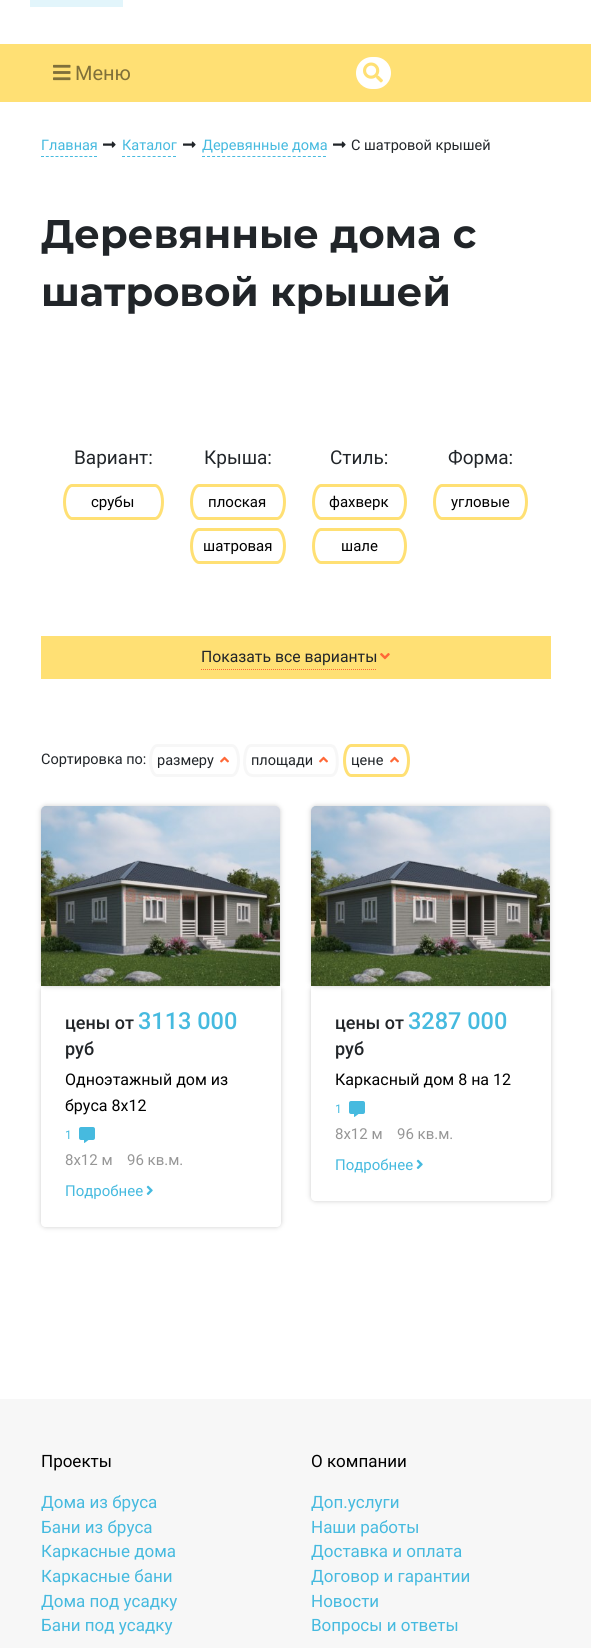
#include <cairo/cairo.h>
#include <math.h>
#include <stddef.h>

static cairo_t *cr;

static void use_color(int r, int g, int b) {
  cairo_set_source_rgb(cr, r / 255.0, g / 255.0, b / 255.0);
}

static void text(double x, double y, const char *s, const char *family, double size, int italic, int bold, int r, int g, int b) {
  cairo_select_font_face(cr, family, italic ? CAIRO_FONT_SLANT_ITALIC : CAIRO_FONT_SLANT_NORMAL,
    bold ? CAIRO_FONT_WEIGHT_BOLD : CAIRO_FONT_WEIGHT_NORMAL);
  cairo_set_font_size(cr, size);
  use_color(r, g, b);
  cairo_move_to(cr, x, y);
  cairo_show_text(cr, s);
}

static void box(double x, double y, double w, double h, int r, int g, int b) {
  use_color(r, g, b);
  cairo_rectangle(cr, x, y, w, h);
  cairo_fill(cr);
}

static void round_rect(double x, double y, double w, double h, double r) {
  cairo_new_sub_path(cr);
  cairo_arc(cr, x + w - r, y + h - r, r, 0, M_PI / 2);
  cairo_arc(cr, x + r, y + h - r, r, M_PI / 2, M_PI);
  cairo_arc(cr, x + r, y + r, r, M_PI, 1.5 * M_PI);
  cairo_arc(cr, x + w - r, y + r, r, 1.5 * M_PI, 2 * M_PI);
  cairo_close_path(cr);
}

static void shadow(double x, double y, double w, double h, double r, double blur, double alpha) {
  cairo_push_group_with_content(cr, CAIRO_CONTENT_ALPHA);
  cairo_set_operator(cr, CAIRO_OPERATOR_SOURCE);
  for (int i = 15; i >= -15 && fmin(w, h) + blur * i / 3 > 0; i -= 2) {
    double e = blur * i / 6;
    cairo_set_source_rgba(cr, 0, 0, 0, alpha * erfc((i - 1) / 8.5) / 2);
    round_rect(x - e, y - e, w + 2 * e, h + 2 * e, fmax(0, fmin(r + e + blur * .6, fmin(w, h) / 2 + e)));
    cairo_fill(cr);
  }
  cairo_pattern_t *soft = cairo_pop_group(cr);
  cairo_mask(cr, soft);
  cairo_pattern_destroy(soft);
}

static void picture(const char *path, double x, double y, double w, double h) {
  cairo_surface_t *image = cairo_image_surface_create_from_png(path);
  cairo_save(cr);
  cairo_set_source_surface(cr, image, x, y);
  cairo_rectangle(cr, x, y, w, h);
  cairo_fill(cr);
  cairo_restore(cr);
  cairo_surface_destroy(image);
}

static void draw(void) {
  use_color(255, 255, 255);
  cairo_paint(cr);
  box(30, 0, 93, 7, 226, 245, 251);
  box(0, 44, 591, 58, 255, 224, 116);
  picture("img_01.png", 53, 64, 18, 17);
  use_color(255, 255, 255);
  round_rect(356, 57, 35, 32, 16);
  cairo_fill(cr);
  picture("img_02.png", 363, 62, 20, 21);
  cairo_new_path(cr);
  cairo_move_to(cr, 41, 156.5);
  cairo_line_to(cr, 97, 156.5);
  use_color(70, 186, 223);
  cairo_set_line_width(cr, 1);
  cairo_set_dash(cr, (double[]){3, 1.82}, 2, 0);
  cairo_stroke(cr);
  picture("img_03.png", 103, 141, 13, 7);
  cairo_new_path(cr);
  cairo_move_to(cr, 122, 156.5);
  cairo_line_to(cr, 176, 156.5);
  cairo_set_dash(cr, (double[]){3, 2.1}, 2, 0);
  cairo_stroke(cr);
  picture("img_03.png", 183, 141, 13, 7);
  cairo_new_path(cr);
  cairo_move_to(cr, 202, 156.5);
  cairo_line_to(cr, 326, 156.5);
  cairo_set_dash(cr, (double[]){3, 2.04}, 2, 0);
  cairo_stroke(cr);
  picture("img_03.png", 333, 141, 13, 7);
  cairo_new_path(cr);
  cairo_move_to(cr, 72, 485.5);
  cairo_line_to(cr, 155, 485.5);
  cairo_curve_to(cr, 159, 485.5, 162.5, 493, 162.5, 502);
  cairo_curve_to(cr, 162.5, 511, 159, 518.5, 155, 518.5);
  cairo_line_to(cr, 72, 518.5);
  cairo_curve_to(cr, 68, 518.5, 64.5, 511, 64.5, 502);
  cairo_curve_to(cr, 64.5, 493, 68, 485.5, 72, 485.5);
  cairo_close_path(cr);
  use_color(255, 224, 116);
  cairo_set_line_width(cr, 3);
  cairo_set_dash(cr, NULL, 0, 0);
  cairo_stroke(cr);
  cairo_new_path(cr);
  cairo_move_to(cr, 199, 485.5);
  cairo_line_to(cr, 277, 485.5);
  cairo_curve_to(cr, 281, 485.5, 284.5, 493, 284.5, 502);
  cairo_curve_to(cr, 284.5, 511, 281, 518.5, 277, 518.5);
  cairo_line_to(cr, 199, 518.5);
  cairo_curve_to(cr, 195, 518.5, 191.5, 511, 191.5, 502);
  cairo_curve_to(cr, 191.5, 493, 195, 485.5, 199, 485.5);
  cairo_close_path(cr);
  cairo_stroke(cr);
  cairo_new_path(cr);
  cairo_move_to(cr, 199, 529.5);
  cairo_line_to(cr, 277, 529.5);
  cairo_curve_to(cr, 281, 529.5, 284.5, 537, 284.5, 546);
  cairo_curve_to(cr, 284.5, 555, 281, 562.5, 277, 562.5);
  cairo_line_to(cr, 199, 562.5);
  cairo_curve_to(cr, 195, 562.5, 191.5, 555, 191.5, 546);
  cairo_curve_to(cr, 191.5, 537, 195, 529.5, 199, 529.5);
  cairo_close_path(cr);
  cairo_stroke(cr);
  cairo_new_path(cr);
  cairo_move_to(cr, 321, 485.5);
  cairo_line_to(cr, 398, 485.5);
  cairo_curve_to(cr, 402, 485.5, 405.5, 493, 405.5, 502);
  cairo_curve_to(cr, 405.5, 511, 402, 518.5, 398, 518.5);
  cairo_line_to(cr, 321, 518.5);
  cairo_curve_to(cr, 317, 518.5, 313.5, 511, 313.5, 502);
  cairo_curve_to(cr, 313.5, 493, 317, 485.5, 321, 485.5);
  cairo_close_path(cr);
  cairo_stroke(cr);
  cairo_new_path(cr);
  cairo_move_to(cr, 321, 529.5);
  cairo_line_to(cr, 398, 529.5);
  cairo_curve_to(cr, 402, 529.5, 405.5, 537, 405.5, 546);
  cairo_curve_to(cr, 405.5, 555, 402, 562.5, 398, 562.5);
  cairo_line_to(cr, 321, 562.5);
  cairo_curve_to(cr, 317, 562.5, 313.5, 555, 313.5, 546);
  cairo_curve_to(cr, 313.5, 537, 317, 529.5, 321, 529.5);
  cairo_close_path(cr);
  cairo_stroke(cr);
  cairo_new_path(cr);
  cairo_move_to(cr, 442, 485.5);
  cairo_line_to(cr, 519, 485.5);
  cairo_curve_to(cr, 523, 485.5, 526.5, 493, 526.5, 502);
  cairo_curve_to(cr, 526.5, 511, 523, 518.5, 519, 518.5);
  cairo_line_to(cr, 442, 518.5);
  cairo_curve_to(cr, 438, 518.5, 434.5, 511, 434.5, 502);
  cairo_curve_to(cr, 434.5, 493, 438, 485.5, 442, 485.5);
  cairo_close_path(cr);
  cairo_stroke(cr);
  box(41, 636, 510, 43, 255, 224, 116);
  cairo_new_path(cr);
  cairo_move_to(cr, 201, 669.5);
  cairo_line_to(cr, 376, 669.5);
  use_color(255, 104, 55);
  cairo_set_line_width(cr, 1);
  cairo_set_dash(cr, (double[]){1, 1}, 2, 0);
  cairo_stroke(cr);
  picture("img_04.png", 380, 653, 10, 7);
  cairo_new_path(cr);
  cairo_move_to(cr, 157, 745.5);
  cairo_line_to(cr, 232, 745.5);
  cairo_curve_to(cr, 235.5, 745.5, 238.5, 752, 238.5, 760.5);
  cairo_curve_to(cr, 238.5, 769, 235.5, 775.5, 232, 775.5);
  cairo_line_to(cr, 157, 775.5);
  cairo_curve_to(cr, 153.5, 775.5, 150.5, 769, 150.5, 760.5);
  cairo_curve_to(cr, 150.5, 752, 153.5, 745.5, 157, 745.5);
  cairo_close_path(cr);
  use_color(247, 247, 247);
  cairo_set_line_width(cr, 3);
  cairo_set_dash(cr, NULL, 0, 0);
  cairo_stroke(cr);
  picture("img_05.png", 220, 756, 9, 7);
  cairo_new_path(cr);
  cairo_move_to(cr, 251, 745.5);
  cairo_line_to(cr, 331, 745.5);
  cairo_line_to(cr, 333.5, 746.5);
  cairo_curve_to(cr, 338.5, 751.5, 339.5, 775.5, 331, 775.5);
  cairo_line_to(cr, 264.5, 775.5);
  cairo_curve_to(cr, 251, 775.5, 246, 778, 244.5, 763.5);
  cairo_curve_to(cr, 244.5, 759.5, 245, 745.5, 251, 745.5);
  cairo_close_path(cr);
  cairo_stroke(cr);
  picture("img_05.png", 319, 756, 9, 7);
  cairo_new_path(cr);
  cairo_move_to(cr, 351, 745.5);
  cairo_line_to(cr, 402, 745.5);
  cairo_curve_to(cr, 405.5, 745.5, 408.5, 752, 408.5, 760.5);
  cairo_curve_to(cr, 408.5, 769, 405.5, 775.5, 402, 775.5);
  cairo_line_to(cr, 351, 775.5);
  cairo_curve_to(cr, 347.5, 775.5, 344.5, 769, 344.5, 760.5);
  cairo_curve_to(cr, 344.5, 752, 347.5, 745.5, 351, 745.5);
  cairo_close_path(cr);
  use_color(255, 224, 116);
  cairo_stroke(cr);
  picture("img_05.png", 390, 756, 9, 7);
  use_color(204, 204, 204);
  shadow(41, 806, 239, 180, 5, 2.5, 1);
  cairo_save(cr);
  cairo_set_fill_rule(cr, CAIRO_FILL_RULE_EVEN_ODD);
  cairo_new_path(cr);
  cairo_move_to(cr, 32, 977);
  cairo_line_to(cr, 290, 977);
  cairo_line_to(cr, 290, 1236);
  cairo_line_to(cr, 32, 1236);
  cairo_close_path(cr);
  cairo_move_to(cr, 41, 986);
  cairo_line_to(cr, 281, 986);
  cairo_line_to(cr, 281, 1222);
  cairo_curve_to(cr, 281, 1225, 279, 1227, 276, 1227);
  cairo_line_to(cr, 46, 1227);
  cairo_curve_to(cr, 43, 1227, 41, 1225, 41, 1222);
  cairo_close_path(cr);
  cairo_clip(cr);
  shadow(41, 986, 240, 241, 5, 2.5, 1);
  cairo_restore(cr);
  picture("img_06.png", 41, 806, 239, 180);
  picture("img_07.png", 79, 1127, 16, 16);
  picture("img_08.png", 146, 1185, 7, 10);
  shadow(311, 806, 239, 180, 5, 2.5, 1);
  cairo_save(cr);
  cairo_set_fill_rule(cr, CAIRO_FILL_RULE_EVEN_ODD);
  cairo_new_path(cr);
  cairo_move_to(cr, 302, 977);
  cairo_line_to(cr, 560, 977);
  cairo_line_to(cr, 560, 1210);
  cairo_line_to(cr, 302, 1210);
  cairo_close_path(cr);
  cairo_move_to(cr, 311, 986);
  cairo_line_to(cr, 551, 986);
  cairo_line_to(cr, 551, 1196);
  cairo_curve_to(cr, 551, 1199, 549, 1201, 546, 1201);
  cairo_line_to(cr, 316, 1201);
  cairo_curve_to(cr, 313, 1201, 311, 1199, 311, 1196);
  cairo_close_path(cr);
  cairo_clip(cr);
  shadow(311, 986, 240, 215, 5, 2.5, 1);
  cairo_restore(cr);
  picture("img_06.png", 311, 806, 239, 180);
  picture("img_07.png", 349, 1101, 16, 16);
  picture("img_08.png", 416, 1159, 7, 10);
  box(0, 1399, 591, 249, 247, 247, 247);
  text(75, 80, "Меню", "Roboto", 20, 0, 0, 128, 112, 58);
  text(41, 150, "Главная", "Roboto", 14.5, 0, 0, 70, 186, 223);
  text(122, 150, "Каталог", "Roboto", 14.5, 0, 0, 70, 186, 223);
  text(202, 150, "Деревянные дома", "Roboto", 14.5, 0, 0, 70, 186, 223);
  text(351, 150, "С шатровой крышей", "Roboto", 14.5, 0, 0, 33, 37, 41);
  text(41, 248, "Деревянные дома с", "Montserrat", 40, 0, 1, 33, 37, 41);
  text(41, 306, "шатровой крышей", "Montserrat", 40, 0, 1, 33, 37, 41);
  text(74, 464, "Вариант:", "Roboto", 19, 0, 0, 33, 37, 41);
  text(91, 507, "срубы", "Roboto", 15, 0, 0, 0, 0, 0);
  text(204, 464, "Крыша:", "Roboto", 19, 0, 0, 33, 37, 41);
  text(208, 507, "плоская", "Roboto", 15, 0, 0, 0, 0, 0);
  text(203, 551, "шатровая", "Roboto", 15, 0, 0, 0, 0, 0);
  text(330, 464, "Стиль:", "Roboto", 19, 0, 0, 33, 37, 41);
  text(329, 507, "фахверк", "Roboto", 15, 0, 0, 0, 0, 0);
  text(341, 551, "шале", "Roboto", 15, 0, 0, 0, 0, 0);
  text(448, 464, "Форма:", "Roboto", 19, 0, 0, 33, 37, 41);
  text(451, 507, "угловые", "Roboto", 15, 0, 0, 0, 0, 0);
  text(201, 662, "Показать все варианты", "Roboto", 15.75, 0, 0, 33, 37, 41);
  text(41, 764, "Сортировка по:", "Roboto", 14.5, 0, 0, 33, 37, 41);
  text(157, 765, "размеру", "Roboto", 14.5, 0, 0, 33, 37, 41);
  text(251, 765, "площади", "Roboto", 14.5, 0, 0, 33, 37, 41);
  text(351, 765, "цене", "Roboto", 14.5, 0, 0, 33, 37, 41);
  text(65, 1029, "цены от", "Roboto Medium", 18, 0, 0, 33, 37, 41);
  text(138, 1029, "3113 000", "Roboto Medium", 23.5, 0, 0, 70, 186, 223);
  text(65, 1055, "руб", "Roboto Medium", 18, 0, 0, 33, 37, 41);
  text(65, 1085, "Одноэтажный дом из", "Roboto", 16, 0, 0, 0, 0, 0);
  text(65, 1111, "бруса 8х12", "Roboto", 16, 0, 0, 0, 0, 0);
  text(65, 1139, "1", "Roboto", 12, 0, 0, 70, 186, 223);
  text(65, 1165, "8х12 м", "Roboto", 15, 0, 0, 150, 150, 150);
  text(127, 1165, "96 кв.м.", "Roboto", 15, 0, 0, 150, 150, 150);
  text(65, 1196, "Подробнее", "Roboto", 15, 0, 0, 70, 186, 223);
  text(335, 1029, "цены от", "Roboto Medium", 18, 0, 0, 33, 37, 41);
  text(408, 1029, "3287 000", "Roboto Medium", 23.5, 0, 0, 70, 186, 223);
  text(335, 1055, "руб", "Roboto Medium", 18, 0, 0, 33, 37, 41);
  text(335, 1085, "Каркасный дом 8 на 12", "Roboto", 16, 0, 0, 0, 0, 0);
  text(335, 1113, "1", "Roboto", 12, 0, 0, 70, 186, 223);
  text(335, 1139, "8х12 м", "Roboto", 15, 0, 0, 150, 150, 150);
  text(397, 1139, "96 кв.м.", "Roboto", 15, 0, 0, 150, 150, 150);
  text(335, 1170, "Подробнее", "Roboto", 15, 0, 0, 70, 186, 223);
  text(41, 1467, "Проекты", "Roboto", 17, 0, 0, 0, 0, 0);
  text(41, 1508, "Дома из бруса", "Roboto", 17, 0, 0, 70, 186, 223);
  text(41, 1533, "Бани из бруса", "Roboto", 17, 0, 0, 70, 186, 223);
  text(41, 1557, "Каркасные дома", "Roboto", 17, 0, 0, 70, 186, 223);
  text(41, 1582, "Каркасные бани", "Roboto", 17, 0, 0, 70, 186, 223);
  text(41, 1607, "Дома под усадку", "Roboto", 17, 0, 0, 70, 186, 223);
  text(41, 1631, "Бани под усадку", "Roboto", 17, 0, 0, 70, 186, 223);
  text(311, 1467, "О компании", "Roboto", 17, 0, 0, 0, 0, 0);
  text(311, 1508, "Доп.услуги", "Roboto", 17, 0, 0, 70, 186, 223);
  text(311, 1533, "Наши работы", "Roboto", 17, 0, 0, 70, 186, 223);
  text(311, 1557, "Доставка и оплата", "Roboto", 17, 0, 0, 70, 186, 223);
  text(311, 1582, "Договор и гарантии", "Roboto", 17, 0, 0, 70, 186, 223);
  text(311, 1607, "Новости", "Roboto", 17, 0, 0, 70, 186, 223);
  text(311, 1631, "Вопросы и ответы", "Roboto", 17, 0, 0, 70, 186, 223);
}

int main(void) {
  cairo_surface_t *surface = cairo_image_surface_create(CAIRO_FORMAT_RGB24, 591, 1648);
  cr = cairo_create(surface);
  cairo_font_options_t *options = cairo_font_options_create();
  cairo_font_options_set_hint_metrics(options, CAIRO_HINT_METRICS_OFF);
  cairo_font_options_set_hint_style(options, CAIRO_HINT_STYLE_NONE);
  cairo_set_font_options(cr, options);
  cairo_set_miter_limit(cr, 4);
  draw();
  cairo_surface_write_to_png(surface, "out.png");
  cairo_font_options_destroy(options);
  cairo_destroy(cr);
  cairo_surface_destroy(surface);
  return 0;
}
